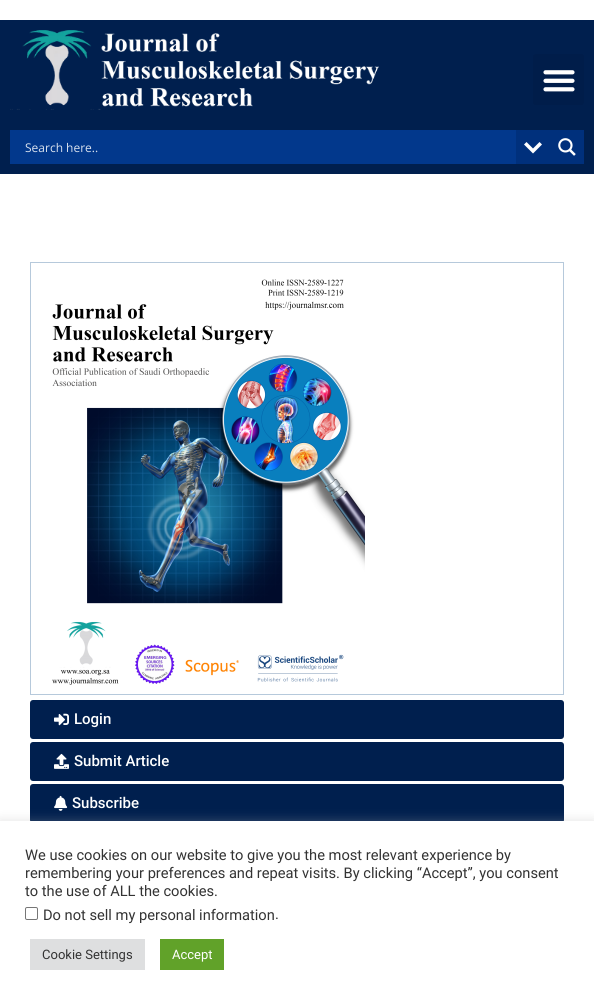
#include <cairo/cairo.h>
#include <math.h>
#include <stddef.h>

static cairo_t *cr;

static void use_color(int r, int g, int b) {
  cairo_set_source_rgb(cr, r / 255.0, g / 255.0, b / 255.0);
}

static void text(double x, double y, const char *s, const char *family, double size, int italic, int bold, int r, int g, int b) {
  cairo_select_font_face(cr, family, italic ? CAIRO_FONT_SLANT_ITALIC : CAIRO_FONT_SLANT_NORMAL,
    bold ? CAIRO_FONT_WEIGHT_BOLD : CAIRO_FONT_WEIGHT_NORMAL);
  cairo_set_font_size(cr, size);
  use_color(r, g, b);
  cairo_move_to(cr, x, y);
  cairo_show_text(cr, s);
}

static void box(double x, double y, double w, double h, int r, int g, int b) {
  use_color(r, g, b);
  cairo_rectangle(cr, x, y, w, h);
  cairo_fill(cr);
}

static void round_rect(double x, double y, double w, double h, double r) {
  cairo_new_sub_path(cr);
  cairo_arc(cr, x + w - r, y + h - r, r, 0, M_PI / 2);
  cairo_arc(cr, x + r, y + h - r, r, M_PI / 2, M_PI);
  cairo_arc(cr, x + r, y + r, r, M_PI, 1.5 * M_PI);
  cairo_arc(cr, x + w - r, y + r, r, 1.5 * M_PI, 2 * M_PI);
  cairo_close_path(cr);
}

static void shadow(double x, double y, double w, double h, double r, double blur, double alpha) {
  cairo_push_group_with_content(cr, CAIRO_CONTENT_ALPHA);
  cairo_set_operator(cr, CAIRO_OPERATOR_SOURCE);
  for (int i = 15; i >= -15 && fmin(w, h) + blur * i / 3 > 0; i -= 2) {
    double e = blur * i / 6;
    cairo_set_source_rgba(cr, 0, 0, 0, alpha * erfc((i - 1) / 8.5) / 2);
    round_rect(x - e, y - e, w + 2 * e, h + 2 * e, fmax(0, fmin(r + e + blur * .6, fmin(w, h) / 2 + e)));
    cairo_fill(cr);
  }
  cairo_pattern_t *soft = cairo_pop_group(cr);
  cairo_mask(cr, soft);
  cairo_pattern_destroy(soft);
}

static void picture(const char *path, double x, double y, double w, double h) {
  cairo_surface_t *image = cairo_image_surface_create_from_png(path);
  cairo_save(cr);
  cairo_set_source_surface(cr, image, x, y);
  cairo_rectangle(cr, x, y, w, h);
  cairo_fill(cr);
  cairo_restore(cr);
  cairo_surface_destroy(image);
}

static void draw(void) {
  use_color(255, 255, 255);
  cairo_paint(cr);
  box(0, 20, 594, 154, 0, 31, 78);
  picture("img_01.png", 10, 30, 369, 80);
  use_color(0, 29, 74);
  round_rect(533, 54, 51, 51, 3);
  cairo_fill(cr);
  picture("img_02.png", 543, 70, 32, 22);
  box(10, 130, 506, 34, 2, 56, 140);
  box(516, 130, 68, 34, 0, 48, 124);
  use_color(255, 255, 255);
  cairo_new_path(cr);
  cairo_move_to(cr, 539.5, 142);
  cairo_line_to(cr, 542, 144.5);
  cairo_line_to(cr, 533, 153.5);
  cairo_line_to(cr, 524, 144.5);
  cairo_line_to(cr, 526.5, 142);
  cairo_line_to(cr, 533, 148.5);
  cairo_close_path(cr);
  cairo_fill(cr);
  picture("img_03.png", 558, 138, 18, 18);
  cairo_rectangle(cr, 30.5, 262.5, 533, 432);
  use_color(182, 201, 219);
  cairo_set_line_width(cr, 1);
  cairo_stroke(cr);
  picture("img_04.png", 52, 279, 313, 406);
  use_color(0, 31, 78);
  round_rect(30, 700, 534, 39, 3);
  cairo_fill(cr);
  picture("img_05.png", 54, 713, 15, 13);
  round_rect(30, 742, 534, 39, 3);
  cairo_fill(cr);
  picture("img_06.png", 54, 753, 15, 16);
  round_rect(30, 784, 534, 39, 3);
  cairo_fill(cr);
  picture("img_07.png", 54, 795, 14, 16);
  use_color(172, 171, 171);
  shadow(0, 820, 594, 179, 0, 5, 0.3);
  box(0, 821, 594, 179, 255, 255, 255);
  round_rect(25.5, 907.5, 12, 12, 1.5);
  use_color(118, 118, 118);
  cairo_stroke(cr);
  box(30, 939, 115, 31, 222, 223, 224);
  box(160, 939, 64, 31, 97, 162, 41);
  text(25, 152, "Search here..", "Open Sans", 12, 0, 0, 217, 225, 238);
  text(74, 724, "Login", "Roboto Medium", 15, 0, 0, 255, 255, 255);
  text(74, 766, "Submit Article", "Roboto Medium", 15, 0, 0, 255, 255, 255);
  text(72, 808, "Subscribe", "Roboto Medium", 15, 0, 0, 255, 255, 255);
  text(25, 860, "We use cookies on our website to give you the most relevant experience by", "Roboto", 14.65, 0, 0, 51, 51, 51);
  text(25, 878, "remembering your preferences and repeat visits. By clicking “Accept”, you consent", "Roboto", 14.65, 0, 0, 51, 51, 51);
  text(25, 896, "to the use of ALL the cookies.", "Roboto", 14.65, 0, 0, 51, 51, 51);
  text(43, 920, "Do not sell my personal information", "Roboto", 14.65, 0, 0, 51, 51, 51);
  text(275, 919, ".", "Roboto", 14.65, 0, 0, 51, 51, 51);
  text(42, 959, "Cookie Settings", "Roboto", 13, 0, 0, 51, 51, 51);
  text(172, 959, "Accept", "Roboto", 13, 0, 0, 255, 255, 255);
}

int main(void) {
  cairo_surface_t *surface = cairo_image_surface_create(CAIRO_FORMAT_RGB24, 594, 1000);
  cr = cairo_create(surface);
  cairo_font_options_t *options = cairo_font_options_create();
  cairo_font_options_set_hint_metrics(options, CAIRO_HINT_METRICS_OFF);
  cairo_font_options_set_hint_style(options, CAIRO_HINT_STYLE_NONE);
  cairo_set_font_options(cr, options);
  cairo_set_miter_limit(cr, 4);
  draw();
  cairo_surface_write_to_png(surface, "out.png");
  cairo_font_options_destroy(options);
  cairo_destroy(cr);
  cairo_surface_destroy(surface);
  return 0;
}
